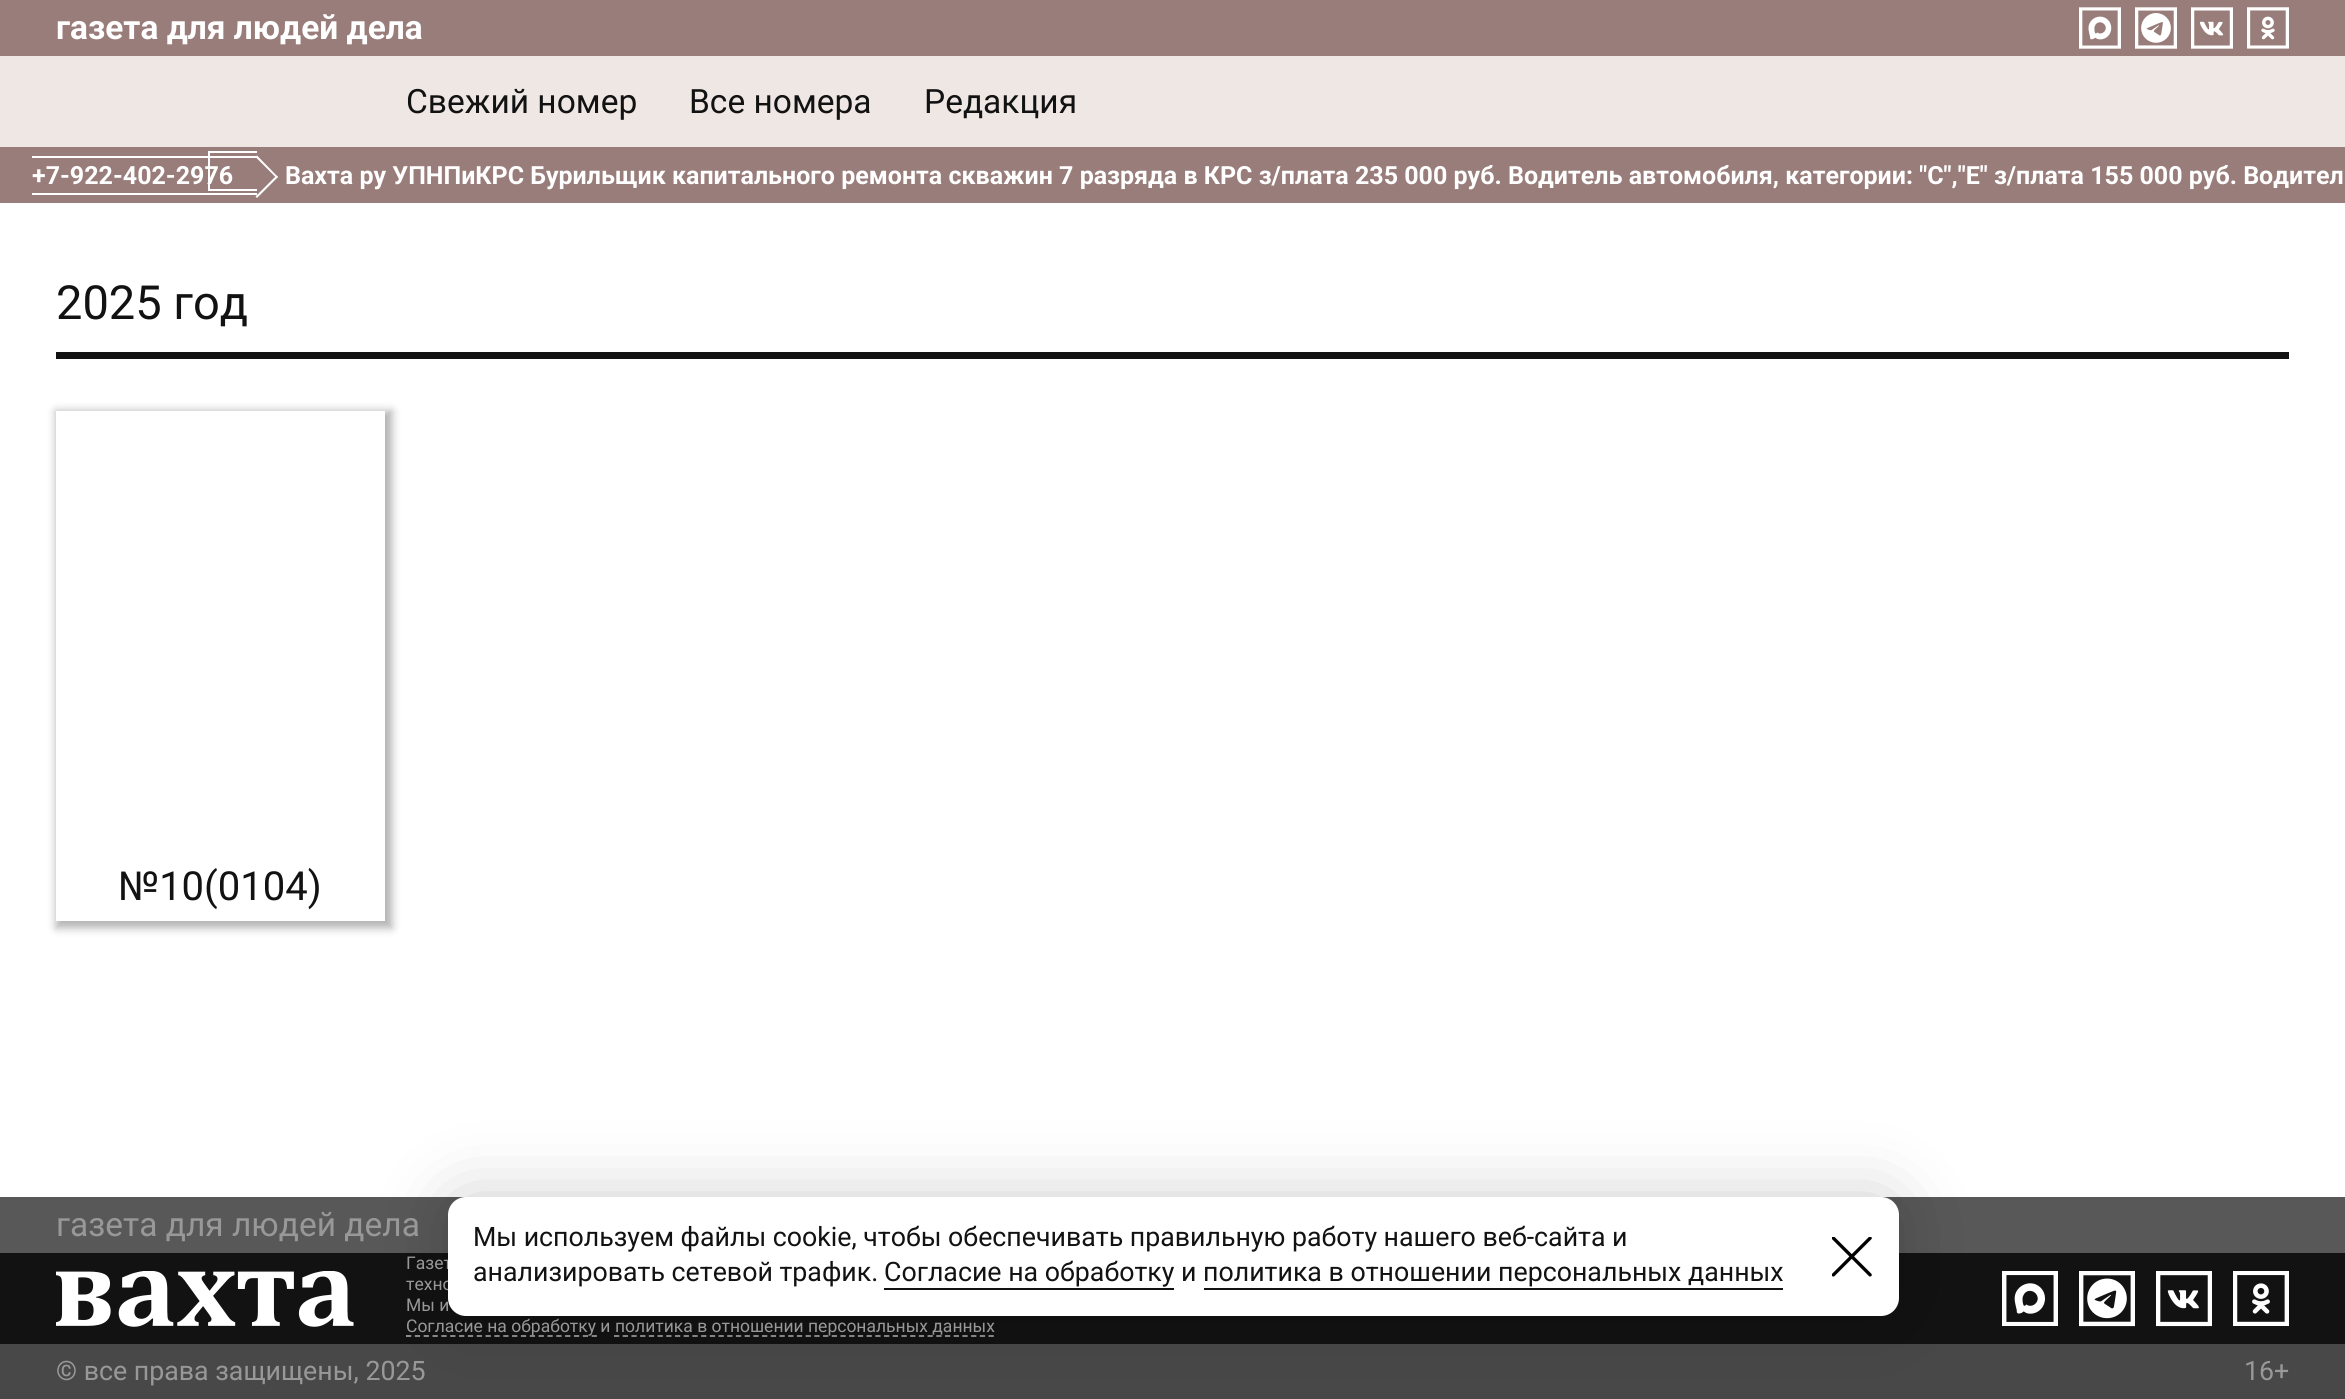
#include <cairo/cairo.h>
#include <math.h>
#include <stddef.h>

static cairo_t *cr;

static void use_color(int r, int g, int b) {
  cairo_set_source_rgb(cr, r / 255.0, g / 255.0, b / 255.0);
}

static void text(double x, double y, const char *s, const char *family, double size, int italic, int bold, int r, int g, int b) {
  cairo_select_font_face(cr, family, italic ? CAIRO_FONT_SLANT_ITALIC : CAIRO_FONT_SLANT_NORMAL,
    bold ? CAIRO_FONT_WEIGHT_BOLD : CAIRO_FONT_WEIGHT_NORMAL);
  cairo_set_font_size(cr, size);
  use_color(r, g, b);
  cairo_move_to(cr, x, y);
  cairo_show_text(cr, s);
}

static void spaced_text(double x, double y, const char *s, double letter, double word) {
  cairo_move_to(cr, x, y);
  while (*s) {
    char ch[5] = {0};
    int n = 0;
    do ch[n++] = *s++; while ((*s & 0xC0) == 0x80);
    cairo_show_text(cr, ch);
    cairo_rel_move_to(cr, letter + word * (*ch == ' '), 0);
  }
}

static void box(double x, double y, double w, double h, int r, int g, int b) {
  use_color(r, g, b);
  cairo_rectangle(cr, x, y, w, h);
  cairo_fill(cr);
}

static void round_rect(double x, double y, double w, double h, double r) {
  cairo_new_sub_path(cr);
  cairo_arc(cr, x + w - r, y + h - r, r, 0, M_PI / 2);
  cairo_arc(cr, x + r, y + h - r, r, M_PI / 2, M_PI);
  cairo_arc(cr, x + r, y + r, r, M_PI, 1.5 * M_PI);
  cairo_arc(cr, x + w - r, y + r, r, 1.5 * M_PI, 2 * M_PI);
  cairo_close_path(cr);
}

static void shadow(double x, double y, double w, double h, double r, double blur, double alpha) {
  cairo_push_group_with_content(cr, CAIRO_CONTENT_ALPHA);
  cairo_set_operator(cr, CAIRO_OPERATOR_SOURCE);
  for (int i = 15; i >= -15 && fmin(w, h) + blur * i / 3 > 0; i -= 2) {
    double e = blur * i / 6;
    cairo_set_source_rgba(cr, 0, 0, 0, alpha * erfc((i - 1) / 8.5) / 2);
    round_rect(x - e, y - e, w + 2 * e, h + 2 * e, fmax(0, fmin(r + e + blur * .6, fmin(w, h) / 2 + e)));
    cairo_fill(cr);
  }
  cairo_pattern_t *soft = cairo_pop_group(cr);
  cairo_mask(cr, soft);
  cairo_pattern_destroy(soft);
}

static void picture(const char *path, double x, double y, double w, double h) {
  cairo_surface_t *image = cairo_image_surface_create_from_png(path);
  cairo_save(cr);
  cairo_set_source_surface(cr, image, x, y);
  cairo_rectangle(cr, x, y, w, h);
  cairo_fill(cr);
  cairo_restore(cr);
  cairo_surface_destroy(image);
}

static void draw(void) {
  use_color(255, 255, 255);
  cairo_paint(cr);
  box(0, 56, 2345, 91, 239, 231, 228);
  box(0, 0, 2345, 56, 153, 125, 122);
  picture("img_01.png", 2079, 7, 42, 42);
  picture("img_02.png", 2135, 7, 42, 42);
  picture("img_03.png", 2191, 7, 42, 42);
  picture("img_04.png", 2247, 7, 42, 42);
  box(0, 147, 2345, 56, 153, 125, 122);
  box(208, 151, 49, 2, 255, 255, 255);
  box(208, 189, 49, 2, 255, 255, 255);
  box(208, 151, 2, 40, 255, 255, 255);
  box(32, 156, 225, 2, 255, 255, 255);
  box(32, 193, 225, 2, 255, 255, 255);
  cairo_new_path(cr);
  cairo_move_to(cr, 255.5, 157);
  cairo_line_to(cr, 257, 155.5);
  cairo_line_to(cr, 278, 177);
  cairo_line_to(cr, 276.5, 178);
  cairo_close_path(cr);
  cairo_fill(cr);
  cairo_new_path(cr);
  cairo_move_to(cr, 255.5, 196.5);
  cairo_line_to(cr, 276.5, 175.5);
  cairo_line_to(cr, 278, 177);
  cairo_line_to(cr, 257, 198);
  cairo_close_path(cr);
  cairo_fill(cr);
  box(56, 352, 2233, 7, 18, 18, 18);
  cairo_save(cr);
  cairo_set_fill_rule(cr, CAIRO_FILL_RULE_EVEN_ODD);
  cairo_new_path(cr);
  cairo_move_to(cr, 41, 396);
  cairo_line_to(cr, 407, 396);
  cairo_line_to(cr, 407, 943);
  cairo_line_to(cr, 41, 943);
  cairo_close_path(cr);
  cairo_move_to(cr, 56, 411);
  cairo_line_to(cr, 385, 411);
  cairo_line_to(cr, 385, 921);
  cairo_line_to(cr, 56, 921);
  cairo_close_path(cr);
  cairo_clip(cr);
  use_color(0, 0, 0);
  shadow(56, 411, 336, 517, 0, 4.5, 0.3);
  cairo_restore(cr);
  box(0, 1253, 2345, 91, 18, 18, 18);
  box(0, 1197, 2345, 56, 88, 88, 88);
  picture("img_05.png", 56, 1271, 298, 56);
  cairo_new_path(cr);
  cairo_move_to(cr, 406, 1336);
  cairo_line_to(cr, 597, 1336);
  use_color(152, 152, 152);
  cairo_set_line_width(cr, 1.8);
  cairo_set_dash(cr, (double[]){5.25, 3.59}, 2, 0);
  cairo_stroke(cr);
  cairo_new_path(cr);
  cairo_move_to(cr, 614, 1336);
  cairo_line_to(cr, 994, 1336);
  cairo_set_dash(cr, (double[]){5.25, 3.46}, 2, 0);
  cairo_stroke(cr);
  picture("img_06.png", 2002, 1271, 56, 55);
  picture("img_07.png", 2079, 1271, 56, 56);
  picture("img_08.png", 2156, 1271, 56, 56);
  picture("img_09.png", 2233, 1271, 56, 55);
  box(0, 1344, 2345, 55, 72, 72, 72);
  use_color(0, 0, 0);
  shadow(448, 1197, 1451, 119, 18, 35, 0.2);
  text(56, 39, "газета для людей дела", "Roboto", 33.5, 0, 1, 255, 255, 255);
  text(406, 113, "Свежий номер", "Roboto", 33.5, 0, 0, 18, 18, 18);
  text(689, 113, "Все номера", "Roboto", 33.5, 0, 0, 18, 18, 18);
  text(924, 113, "Редакция", "Roboto", 33.5, 0, 0, 18, 18, 18);
  text(32, 184, "+7-922-402-2976", "Roboto", 25.02, 0, 1, 255, 255, 255);
  text(285, 184, "Вахта ру УПНПиКРС Бурильщик капитального ремонта скважин 7 разряда в КРС з/плата 235 000 руб. Водитель автомобиля, категории: \"С\",\"E\" з/плата 155 000 руб. Водител", "Roboto", 25.02, 0, 1, 255, 255, 255);
  text(56, 319, "2025 год", "Roboto", 47, 0, 0, 18, 18, 18);
  text(118, 900, "№10(0104)", "Roboto", 40, 0, 0, 18, 18, 18);
  text(56, 1236, "газета для людей дела", "Roboto", 33.5, 0, 0, 152, 152, 152);
  text(406, 1269, "Газет", "Roboto", 17.5, 0, 0, 152, 152, 152);
  text(406, 1290, "техно", "Roboto", 17.5, 0, 0, 152, 152, 152);
  text(406, 1311, "Мы и", "Roboto", 17.5, 0, 0, 152, 152, 152);
  text(406, 1332, "Согласие на обработку и", "Roboto", 17.5, 0, 0, 152, 152, 152);
  text(615, 1332, "политика в отношении персональных данных", "Roboto", 17.5, 0, 0, 152, 152, 152);
  text(56, 1380, "© все права защищены, 2025", "Roboto", 26.75, 0, 0, 152, 152, 152);
  text(2244, 1380, "16+", "Roboto", 26.75, 0, 0, 152, 152, 152);
  use_color(255, 255, 255);
  round_rect(448, 1197, 1451, 119, 18);
  cairo_fill(cr);
  use_color(18, 18, 18);
  spaced_text(473, 1246, "Мы используем файлы cookie, чтобы обеспечивать правильную работу нашего веб-сайта и", 0, -0.1);
  picture("img_10.png", 1832, 1237, 40, 40);
  text(473, 1281, "анализировать сетевой трафик.", "Roboto", 26.75, 0, 0, 18, 18, 18);
  text(884, 1281, "Согласие на обработку", "Roboto", 26.75, 0, 0, 18, 18, 18);
  box(884, 1288, 290, 2, 18, 18, 18);
  text(1181, 1281, "и", "Roboto", 26.75, 0, 0, 18, 18, 18);
  text(1203, 1281, "политика в отношении персональных данных", "Roboto", 26.75, 0, 0, 18, 18, 18);
  box(1204, 1288, 579, 2, 18, 18, 18);
}

int main(void) {
  cairo_surface_t *surface = cairo_image_surface_create(CAIRO_FORMAT_RGB24, 2345, 1399);
  cr = cairo_create(surface);
  cairo_font_options_t *options = cairo_font_options_create();
  cairo_font_options_set_hint_metrics(options, CAIRO_HINT_METRICS_OFF);
  cairo_font_options_set_hint_style(options, CAIRO_HINT_STYLE_NONE);
  cairo_set_font_options(cr, options);
  cairo_set_miter_limit(cr, 4);
  draw();
  cairo_surface_write_to_png(surface, "out.png");
  cairo_font_options_destroy(options);
  cairo_destroy(cr);
  cairo_surface_destroy(surface);
  return 0;
}
